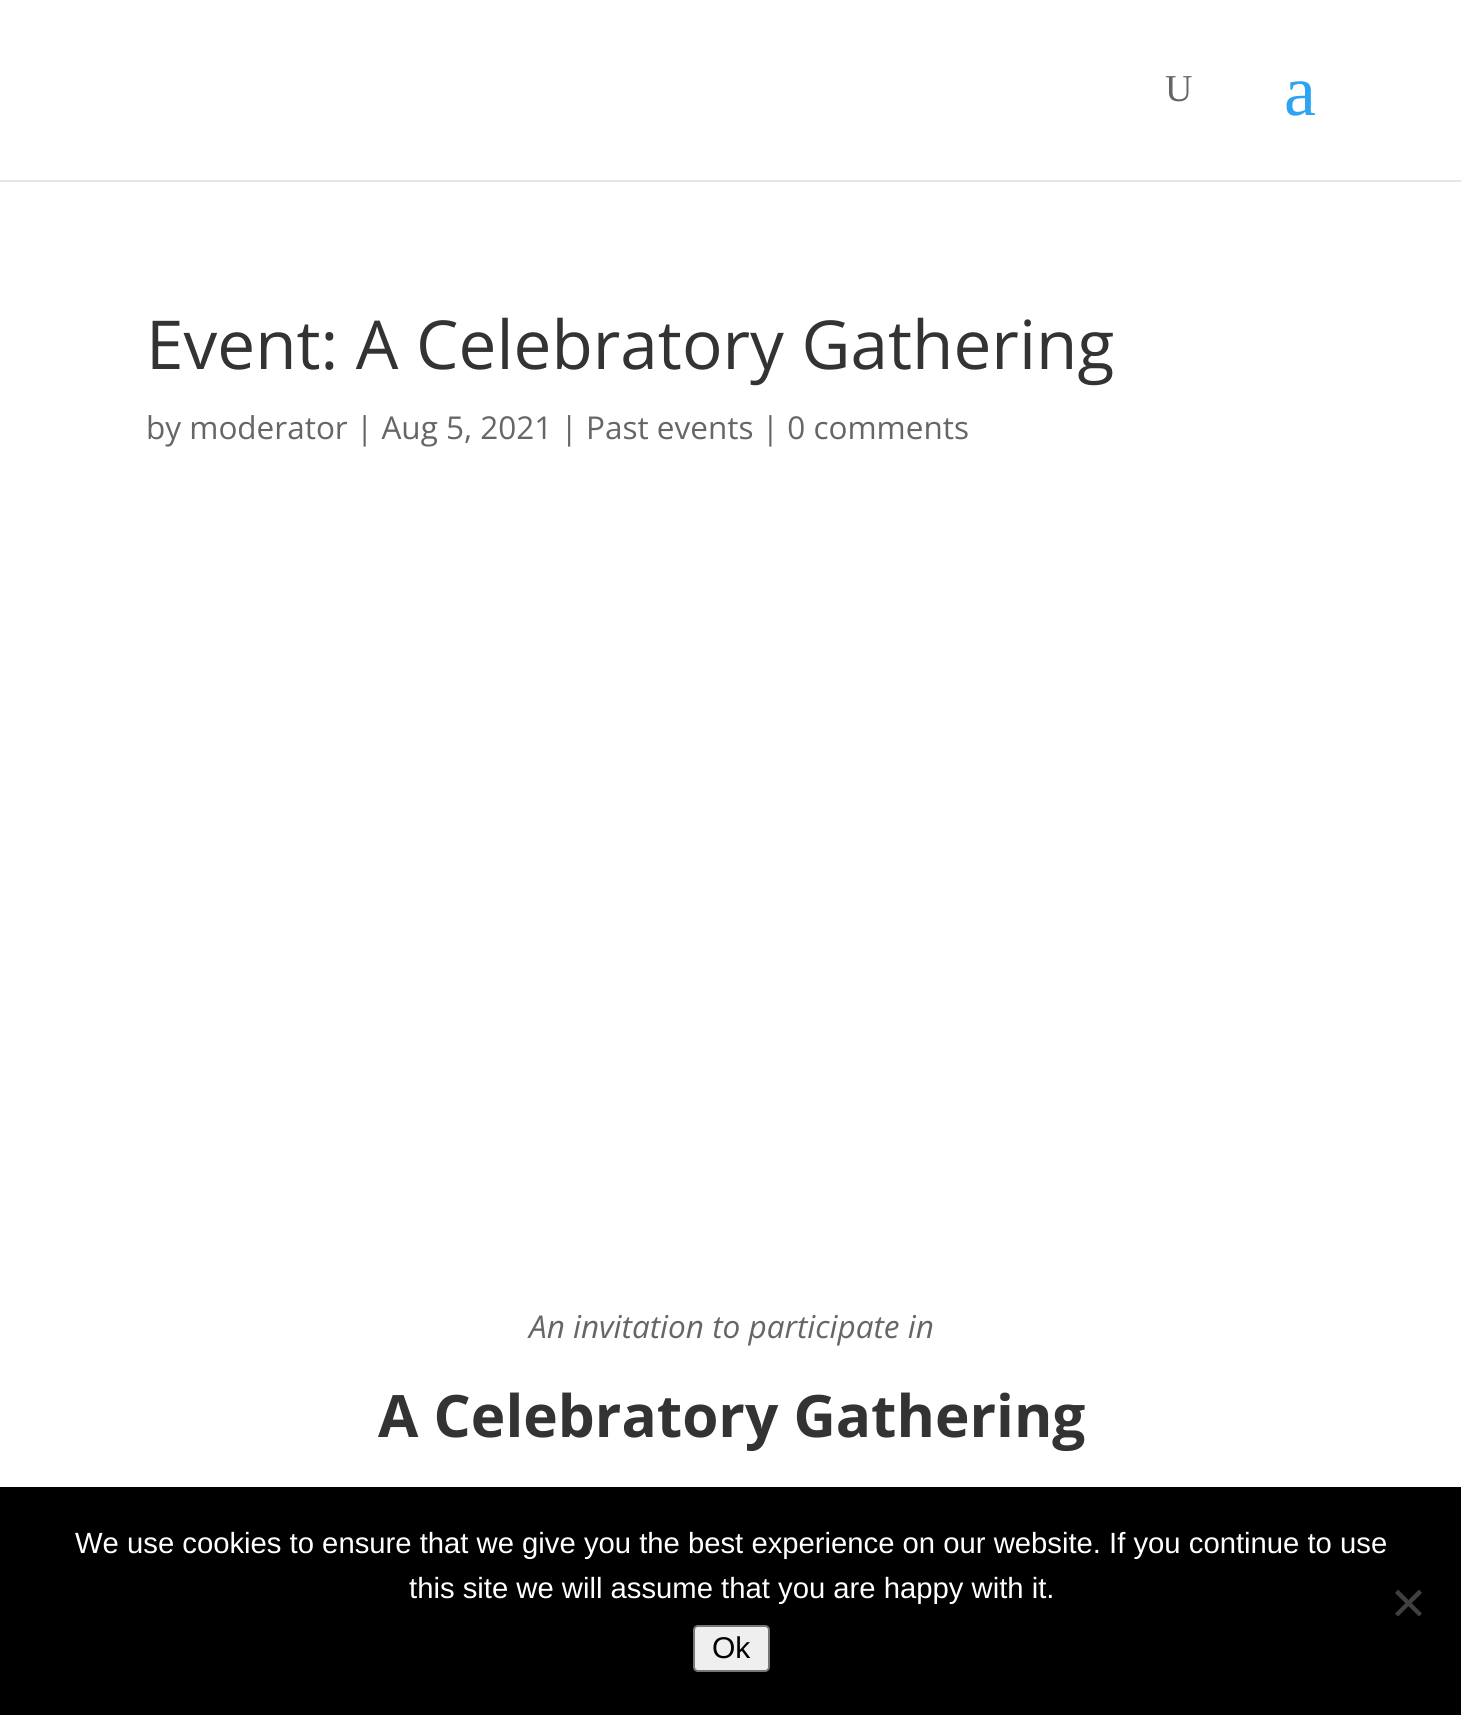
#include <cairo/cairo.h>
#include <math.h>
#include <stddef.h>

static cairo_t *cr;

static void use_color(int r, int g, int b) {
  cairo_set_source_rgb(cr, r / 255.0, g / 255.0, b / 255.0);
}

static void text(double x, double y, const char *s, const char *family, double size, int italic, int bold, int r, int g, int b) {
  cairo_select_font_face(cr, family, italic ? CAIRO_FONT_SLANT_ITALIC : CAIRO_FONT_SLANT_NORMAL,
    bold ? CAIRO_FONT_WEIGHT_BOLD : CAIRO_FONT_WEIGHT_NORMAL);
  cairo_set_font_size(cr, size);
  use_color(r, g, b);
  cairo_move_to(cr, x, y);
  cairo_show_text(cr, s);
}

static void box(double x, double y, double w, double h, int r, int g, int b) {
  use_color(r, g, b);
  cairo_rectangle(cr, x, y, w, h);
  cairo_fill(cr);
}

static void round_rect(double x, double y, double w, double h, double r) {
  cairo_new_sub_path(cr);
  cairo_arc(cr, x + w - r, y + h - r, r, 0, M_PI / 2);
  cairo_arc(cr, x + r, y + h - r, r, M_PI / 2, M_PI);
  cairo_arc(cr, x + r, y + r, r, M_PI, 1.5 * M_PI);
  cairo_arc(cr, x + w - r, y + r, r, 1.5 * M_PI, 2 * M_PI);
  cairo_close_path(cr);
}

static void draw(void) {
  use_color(255, 255, 255);
  cairo_paint(cr);
  use_color(230, 230, 230);
  cairo_new_path(cr);
  cairo_move_to(cr, 0, 180);
  cairo_line_to(cr, 0, 182);
  cairo_line_to(cr, 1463, 182);
  cairo_line_to(cr, 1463, 2);
  cairo_line_to(cr, 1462, 2);
  cairo_line_to(cr, 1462, 180);
  cairo_close_path(cr);
  cairo_fill(cr);
  box(0, 1487, 1461, 228, 0, 0, 0);
  use_color(64, 64, 64);
  cairo_new_path(cr);
  cairo_move_to(cr, 1419, 1589.5);
  cairo_line_to(cr, 1422, 1593);
  cairo_line_to(cr, 1398, 1616.5);
  cairo_line_to(cr, 1395, 1613.5);
  cairo_close_path(cr);
  cairo_fill(cr);
  cairo_new_path(cr);
  cairo_move_to(cr, 1395, 1593);
  cairo_line_to(cr, 1398, 1589.5);
  cairo_line_to(cr, 1422, 1613.5);
  cairo_line_to(cr, 1419, 1616.5);
  cairo_close_path(cr);
  cairo_fill(cr);
  use_color(239, 239, 239);
  round_rect(694, 1626, 75, 45, 4);
  cairo_fill_preserve(cr);
  use_color(118, 118, 118);
  cairo_stroke(cr);
  text(1165, 101, "U", "Liberation Serif", 38, 0, 0, 102, 102, 102);
  text(1284, 115, "a", "Liberation Serif", 72, 0, 0, 46, 163, 242);
  text(146, 369, "Event: A Celebratory Gathering", "Open Sans", 67.5, 0, 0, 51, 51, 51);
  text(146, 439, "by moderator | Aug 5, 2021 | Past events | 0 comments", "Open Sans", 31.5, 0, 0, 102, 102, 102);
  text(529, 1338, "An invitation to participate in", "Open Sans", 31.5, 1, 0, 102, 102, 102);
  text(378, 1437, "A Celebratory Gathering", "Open Sans", 58.5, 0, 1, 51, 51, 51);
  text(75, 1553, "We use cookies to ensure that we give you the best experience on our website. If you continue to use", "Liberation Sans", 29.25, 0, 0, 255, 255, 255);
  text(409, 1598, "this site we will assume that you are happy with it.", "Liberation Sans", 29.25, 0, 0, 255, 255, 255);
  text(712, 1658, "Ok", "Liberation Sans", 30, 0, 0, 0, 0, 0);
}

int main(void) {
  cairo_surface_t *surface = cairo_image_surface_create(CAIRO_FORMAT_RGB24, 1461, 1715);
  cr = cairo_create(surface);
  cairo_font_options_t *options = cairo_font_options_create();
  cairo_font_options_set_hint_metrics(options, CAIRO_HINT_METRICS_OFF);
  cairo_font_options_set_hint_style(options, CAIRO_HINT_STYLE_NONE);
  cairo_set_font_options(cr, options);
  cairo_set_miter_limit(cr, 4);
  draw();
  cairo_surface_write_to_png(surface, "out.png");
  cairo_font_options_destroy(options);
  cairo_destroy(cr);
  cairo_surface_destroy(surface);
  return 0;
}
